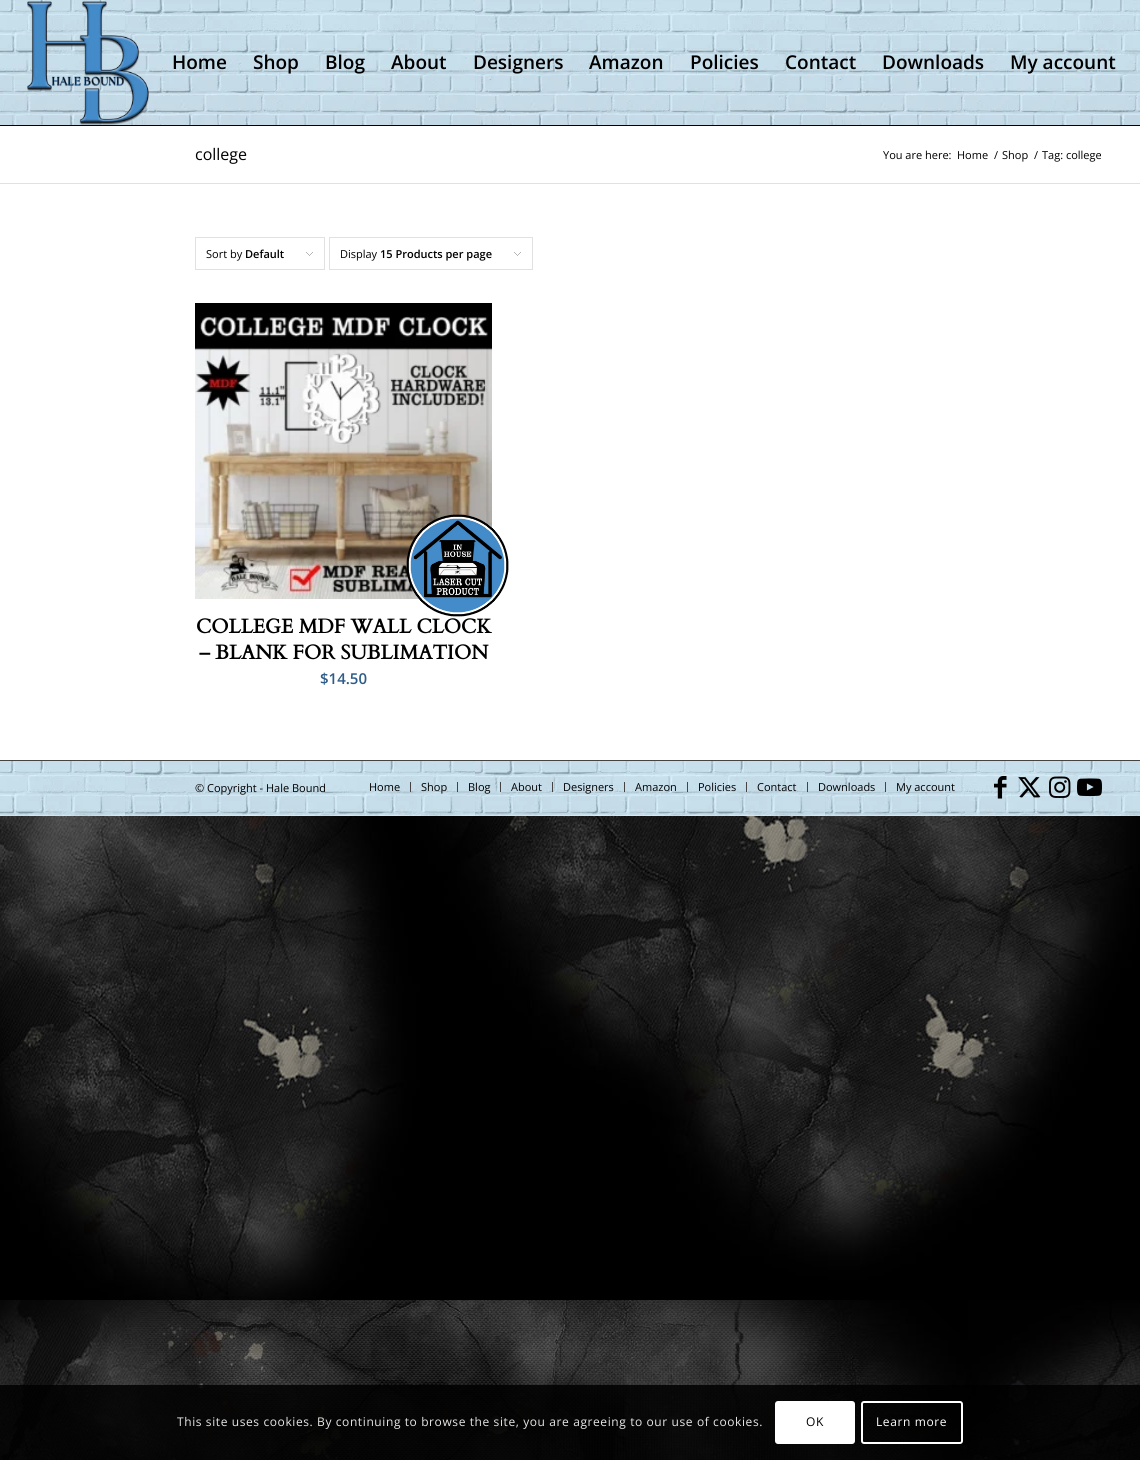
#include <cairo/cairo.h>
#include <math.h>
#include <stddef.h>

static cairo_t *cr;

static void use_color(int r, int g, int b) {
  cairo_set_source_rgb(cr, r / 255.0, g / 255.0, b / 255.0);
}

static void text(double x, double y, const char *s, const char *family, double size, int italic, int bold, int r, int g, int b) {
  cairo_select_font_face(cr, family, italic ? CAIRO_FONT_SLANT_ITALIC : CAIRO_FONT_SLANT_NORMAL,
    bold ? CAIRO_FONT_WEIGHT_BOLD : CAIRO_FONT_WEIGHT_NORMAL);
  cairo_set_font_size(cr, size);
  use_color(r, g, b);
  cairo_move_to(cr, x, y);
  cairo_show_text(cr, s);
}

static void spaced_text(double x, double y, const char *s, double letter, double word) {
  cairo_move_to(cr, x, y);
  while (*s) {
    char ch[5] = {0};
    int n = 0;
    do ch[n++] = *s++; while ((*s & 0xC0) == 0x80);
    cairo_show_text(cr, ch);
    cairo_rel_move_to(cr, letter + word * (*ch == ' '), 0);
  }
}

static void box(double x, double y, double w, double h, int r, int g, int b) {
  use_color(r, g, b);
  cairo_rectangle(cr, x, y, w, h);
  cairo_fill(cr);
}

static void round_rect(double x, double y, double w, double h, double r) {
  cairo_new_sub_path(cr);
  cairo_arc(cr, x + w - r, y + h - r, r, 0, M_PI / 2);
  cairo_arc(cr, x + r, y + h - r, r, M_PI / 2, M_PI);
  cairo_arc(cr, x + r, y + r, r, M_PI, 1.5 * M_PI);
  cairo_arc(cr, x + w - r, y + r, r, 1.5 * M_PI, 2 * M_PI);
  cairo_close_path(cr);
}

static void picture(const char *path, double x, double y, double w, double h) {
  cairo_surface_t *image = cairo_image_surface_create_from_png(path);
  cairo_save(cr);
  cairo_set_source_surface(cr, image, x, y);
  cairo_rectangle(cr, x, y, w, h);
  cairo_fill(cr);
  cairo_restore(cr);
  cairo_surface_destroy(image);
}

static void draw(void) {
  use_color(255, 255, 255);
  cairo_paint(cr);
  picture("img_01.png", 0, 816, 1140, 644);
  picture("img_02.png", 0, 0, 1140, 125);
  box(0, 125, 1140, 1, 0, 0, 0);
  picture("img_03.png", 27, 1, 122, 124);
  box(0, 183, 1140, 1, 225, 225, 225);
  picture("img_04.png", 306, 252, 7, 4);
  cairo_rectangle(cr, 195.5, 237.5, 129, 32);
  cairo_set_line_width(cr, 1);
  cairo_stroke(cr);
  picture("img_04.png", 514, 252, 7, 4);
  cairo_rectangle(cr, 329.5, 237.5, 203, 32);
  cairo_stroke(cr);
  picture("img_06.png", 195, 303, 297, 296);
  picture("img_05.png", 406, 514, 103, 103);
  picture("img_07.png", 0, 761, 1140, 55);
  box(0, 760, 1140, 1, 68, 68, 68);
  box(410, 782, 1, 10, 68, 68, 68);
  box(457, 782, 1, 10, 68, 68, 68);
  box(500, 782, 1, 10, 68, 68, 68);
  box(552, 782, 1, 10, 68, 68, 68);
  box(624, 782, 1, 10, 68, 68, 68);
  box(687, 782, 1, 10, 68, 68, 68);
  box(746, 782, 1, 10, 68, 68, 68);
  box(807, 782, 1, 10, 68, 68, 68);
  box(885, 782, 1, 10, 68, 68, 68);
  picture("img_08.png", 994, 776, 13, 23);
  picture("img_09.png", 1018, 777, 23, 21);
  picture("img_10.png", 1049, 776, 22, 22);
  picture("img_11.png", 1077, 778, 25, 19);
  cairo_set_source_rgba(cr, 0, 0, 0, 0.85);
  cairo_rectangle(cr, 0, 1385, 1140, 75);
  cairo_fill(cr);
  use_color(255, 255, 255);
  round_rect(775, 1401, 80, 43, 3);
  cairo_fill(cr);
  round_rect(862, 1402, 100, 41, 2);
  cairo_set_line_width(cr, 2);
  cairo_stroke(cr);
  text(172, 69, "Home", "Open Sans SemiBold", 19, 0, 0, 0, 0, 0);
  text(253, 69, "Shop", "Open Sans SemiBold", 19, 0, 0, 0, 0, 0);
  text(325, 69, "Blog", "Open Sans SemiBold", 19, 0, 0, 0, 0, 0);
  text(391, 69, "About", "Open Sans SemiBold", 19, 0, 0, 0, 0, 0);
  text(473, 69, "Designers", "Open Sans SemiBold", 19, 0, 0, 0, 0, 0);
  text(589, 69, "Amazon", "Open Sans SemiBold", 19, 0, 0, 0, 0, 0);
  text(690, 69, "Policies", "Open Sans SemiBold", 19, 0, 0, 0, 0, 0);
  text(785, 69, "Contact", "Open Sans SemiBold", 19, 0, 0, 0, 0, 0);
  text(882, 69, "Downloads", "Open Sans SemiBold", 19, 0, 0, 0, 0, 0);
  text(1010, 69, "My account", "Open Sans SemiBold", 19, 0, 0, 0, 0, 0);
  text(195, 160, "college", "Open Sans", 16, 0, 0, 0, 0, 0);
  text(883, 159, "You are here:", "Open Sans", 11, 0, 0, 0, 0, 0);
  text(957, 159, "Home", "Open Sans", 11, 0, 0, 0, 0, 0);
  text(994, 159, "/", "Open Sans", 11, 0, 0, 0, 0, 0);
  text(1002, 159, "Shop", "Open Sans", 11, 0, 0, 0, 0, 0);
  text(1034, 159, "/", "Open Sans", 11, 0, 0, 0, 0, 0);
  text(1042, 159, "Tag: college", "Open Sans", 11, 0, 0, 0, 0, 0);
  text(206, 258, "Sort by", "Open Sans", 11, 0, 0, 0, 0, 0);
  text(245, 258, "Default", "Open Sans SemiBold", 11, 0, 0, 0, 0, 0);
  text(340, 258, "Display", "Open Sans", 11, 0, 0, 0, 0, 0);
  text(380, 258, "15 Products per page", "Open Sans SemiBold", 11, 0, 0, 0, 0, 0);
  text(196, 633, "COLLEGE MDF WALL CLOCK", "Cardo", 20, 0, 1, 0, 0, 0);
  text(199, 659, "– BLANK FOR SUBLIMATION", "Cardo", 20, 0, 1, 0, 0, 0);
  text(320, 684, "$14.50", "Open Sans SemiBold", 15, 0, 0, 45, 92, 136);
  text(195, 792, "© Copyright - Hale Bound", "Open Sans", 11, 0, 0, 0, 0, 0);
  text(369, 791, "Home", "Open Sans", 11, 0, 0, 0, 0, 0);
  text(421, 791, "Shop", "Open Sans", 11, 0, 0, 0, 0, 0);
  text(468, 791, "Blog", "Open Sans", 11, 0, 0, 0, 0, 0);
  text(511, 791, "About", "Open Sans", 11, 0, 0, 0, 0, 0);
  text(563, 791, "Designers", "Open Sans", 11, 0, 0, 0, 0, 0);
  text(635, 791, "Amazon", "Open Sans", 11, 0, 0, 0, 0, 0);
  text(698, 791, "Policies", "Open Sans", 11, 0, 0, 0, 0, 0);
  text(757, 791, "Contact", "Open Sans", 11, 0, 0, 0, 0, 0);
  text(818, 791, "Downloads", "Open Sans", 11, 0, 0, 0, 0, 0);
  text(896, 791, "My account", "Open Sans", 11, 0, 0, 0, 0, 0);
  cairo_set_font_size(cr, 12);
  use_color(230, 230, 230);
  spaced_text(177, 1426, "This site uses cookies. By continuing to browse the site, you are agreeing to our use of cookies.", 0.6, 0);
  use_color(0, 0, 0);
  spaced_text(806, 1426, "OK", 0.6, 0);
  use_color(255, 255, 255);
  spaced_text(876, 1426, "Learn more", 0.6, 0);
}

int main(void) {
  cairo_surface_t *surface = cairo_image_surface_create(CAIRO_FORMAT_RGB24, 1140, 1460);
  cr = cairo_create(surface);
  cairo_font_options_t *options = cairo_font_options_create();
  cairo_font_options_set_hint_metrics(options, CAIRO_HINT_METRICS_OFF);
  cairo_font_options_set_hint_style(options, CAIRO_HINT_STYLE_NONE);
  cairo_set_font_options(cr, options);
  cairo_set_miter_limit(cr, 4);
  draw();
  cairo_surface_write_to_png(surface, "out.png");
  cairo_font_options_destroy(options);
  cairo_destroy(cr);
  cairo_surface_destroy(surface);
  return 0;
}
